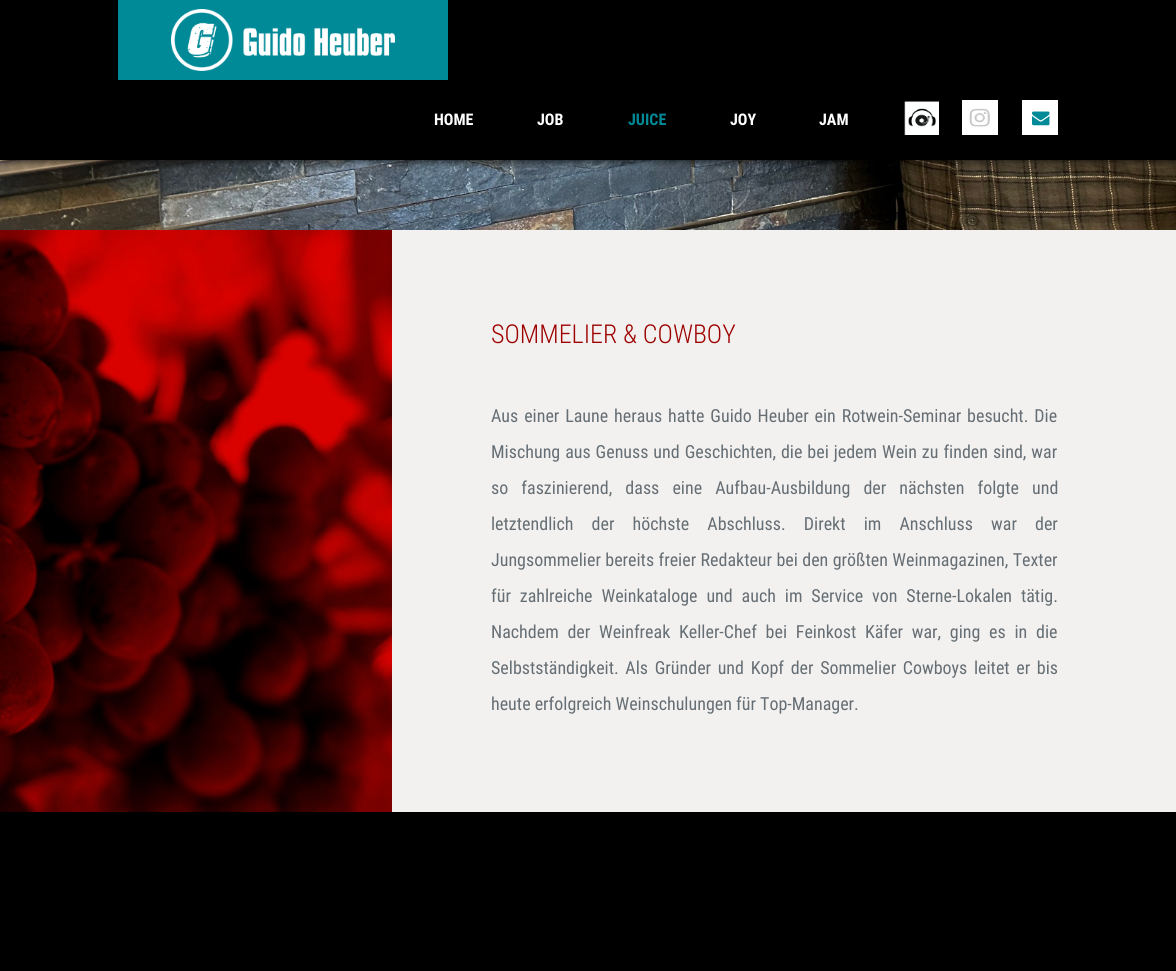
#include <cairo/cairo.h>
#include <math.h>
#include <stddef.h>

static cairo_t *cr;

static void use_color(int r, int g, int b) {
  cairo_set_source_rgb(cr, r / 255.0, g / 255.0, b / 255.0);
}

static void text(double x, double y, const char *s, const char *family, double size, int italic, int bold, int r, int g, int b) {
  cairo_select_font_face(cr, family, italic ? CAIRO_FONT_SLANT_ITALIC : CAIRO_FONT_SLANT_NORMAL,
    bold ? CAIRO_FONT_WEIGHT_BOLD : CAIRO_FONT_WEIGHT_NORMAL);
  cairo_set_font_size(cr, size);
  use_color(r, g, b);
  cairo_move_to(cr, x, y);
  cairo_show_text(cr, s);
}

static void spaced_text(double x, double y, const char *s, double letter, double word) {
  cairo_move_to(cr, x, y);
  while (*s) {
    char ch[5] = {0};
    int n = 0;
    do ch[n++] = *s++; while ((*s & 0xC0) == 0x80);
    cairo_show_text(cr, ch);
    cairo_rel_move_to(cr, letter + word * (*ch == ' '), 0);
  }
}

static void box(double x, double y, double w, double h, int r, int g, int b) {
  use_color(r, g, b);
  cairo_rectangle(cr, x, y, w, h);
  cairo_fill(cr);
}

static void round_rect(double x, double y, double w, double h, double r) {
  cairo_new_sub_path(cr);
  cairo_arc(cr, x + w - r, y + h - r, r, 0, M_PI / 2);
  cairo_arc(cr, x + r, y + h - r, r, M_PI / 2, M_PI);
  cairo_arc(cr, x + r, y + r, r, M_PI, 1.5 * M_PI);
  cairo_arc(cr, x + w - r, y + r, r, 1.5 * M_PI, 2 * M_PI);
  cairo_close_path(cr);
}

static void shadow(double x, double y, double w, double h, double r, double blur, double alpha) {
  cairo_push_group_with_content(cr, CAIRO_CONTENT_ALPHA);
  cairo_set_operator(cr, CAIRO_OPERATOR_SOURCE);
  for (int i = 15; i >= -15 && fmin(w, h) + blur * i / 3 > 0; i -= 2) {
    double e = blur * i / 6;
    cairo_set_source_rgba(cr, 0, 0, 0, alpha * erfc((i - 1) / 8.5) / 2);
    round_rect(x - e, y - e, w + 2 * e, h + 2 * e, fmax(0, fmin(r + e + blur * .6, fmin(w, h) / 2 + e)));
    cairo_fill(cr);
  }
  cairo_pattern_t *soft = cairo_pop_group(cr);
  cairo_mask(cr, soft);
  cairo_pattern_destroy(soft);
}

static void picture(const char *path, double x, double y, double w, double h) {
  cairo_surface_t *image = cairo_image_surface_create_from_png(path);
  cairo_save(cr);
  cairo_set_source_surface(cr, image, x, y);
  cairo_rectangle(cr, x, y, w, h);
  cairo_fill(cr);
  cairo_restore(cr);
  cairo_surface_destroy(image);
}

static void draw(void) {
  use_color(0, 0, 0);
  cairo_paint(cr);
  picture("img_05.png", 0, 160, 1176, 70);
  shadow(0, 0, 1176, 160, 0, 5, 1);
  box(118, 0, 330, 80, 0, 138, 151);
  picture("img_01.png", 171, 9, 224, 62);
  picture("img_02.png", 904, 101, 35, 34);
  picture("img_03.png", 962, 100, 36, 35);
  picture("img_04.png", 1022, 100, 36, 35);
  box(392, 230, 784, 582, 243, 241, 239);
  picture("img_06.png", 0, 230, 392, 582);
  text(434, 125, "HOME", "Roboto Condensed", 16, 0, 1, 255, 255, 255);
  text(537, 125, "JOB", "Roboto Condensed", 16, 0, 1, 255, 255, 255);
  text(628, 125, "JUICE", "Roboto Condensed", 16, 0, 1, 0, 138, 151);
  text(730, 125, "JOY", "Roboto Condensed", 16, 0, 1, 255, 255, 255);
  text(819, 125, "JAM", "Roboto Condensed", 16, 0, 1, 255, 255, 255);
  text(491, 343, "SOMMELIER & COWBOY", "Roboto Condensed Light", 26, 0, 0, 156, 1, 0);
  cairo_select_font_face(cr, "Roboto Condensed", CAIRO_FONT_SLANT_NORMAL, CAIRO_FONT_WEIGHT_NORMAL);
  cairo_set_font_size(cr, 18);
  use_color(101, 110, 116);
  spaced_text(491, 422, "Aus einer Laune heraus hatte Guido Heuber ein Rotwein-Seminar besucht. Die", 0, 1.75);
  spaced_text(491, 458, "Mischung aus Genuss und Geschichten, die bei jedem Wein zu finden sind, war", 0, 0.8);
  spaced_text(491, 494, "so faszinierend, dass eine Aufbau-Ausbildung der nächsten folgte und", 0, 9);
  spaced_text(491, 530, "letztendlich der höchste Abschluss. Direkt im Anschluss war der", 0, 14);
  spaced_text(491, 566, "Jungsommelier bereits freier Redakteur bei den größten Weinmagazinen, Texter", 0, 0.25);
  spaced_text(491, 602, "für zahlreiche Weinkataloge und auch im Service von Sterne-Lokalen tätig.", 0, 4.75);
  spaced_text(491, 638, "Nachdem der Weinfreak Keller-Chef bei Feinkost Käfer war, ging es in die", 0, 4.6);
  spaced_text(491, 674, "Selbstständigkeit. Als Gründer und Kopf der Sommelier Cowboys leitet er bis", 0, 2.5);
  text(491, 710, "heute erfolgreich Weinschulungen für Top-Manager.", "Roboto Condensed", 18, 0, 0, 101, 110, 116);
}

int main(void) {
  cairo_surface_t *surface = cairo_image_surface_create(CAIRO_FORMAT_RGB24, 1176, 971);
  cr = cairo_create(surface);
  cairo_font_options_t *options = cairo_font_options_create();
  cairo_font_options_set_hint_metrics(options, CAIRO_HINT_METRICS_OFF);
  cairo_font_options_set_hint_style(options, CAIRO_HINT_STYLE_NONE);
  cairo_set_font_options(cr, options);
  cairo_set_miter_limit(cr, 4);
  draw();
  cairo_surface_write_to_png(surface, "out.png");
  cairo_font_options_destroy(options);
  cairo_destroy(cr);
  cairo_surface_destroy(surface);
  return 0;
}
